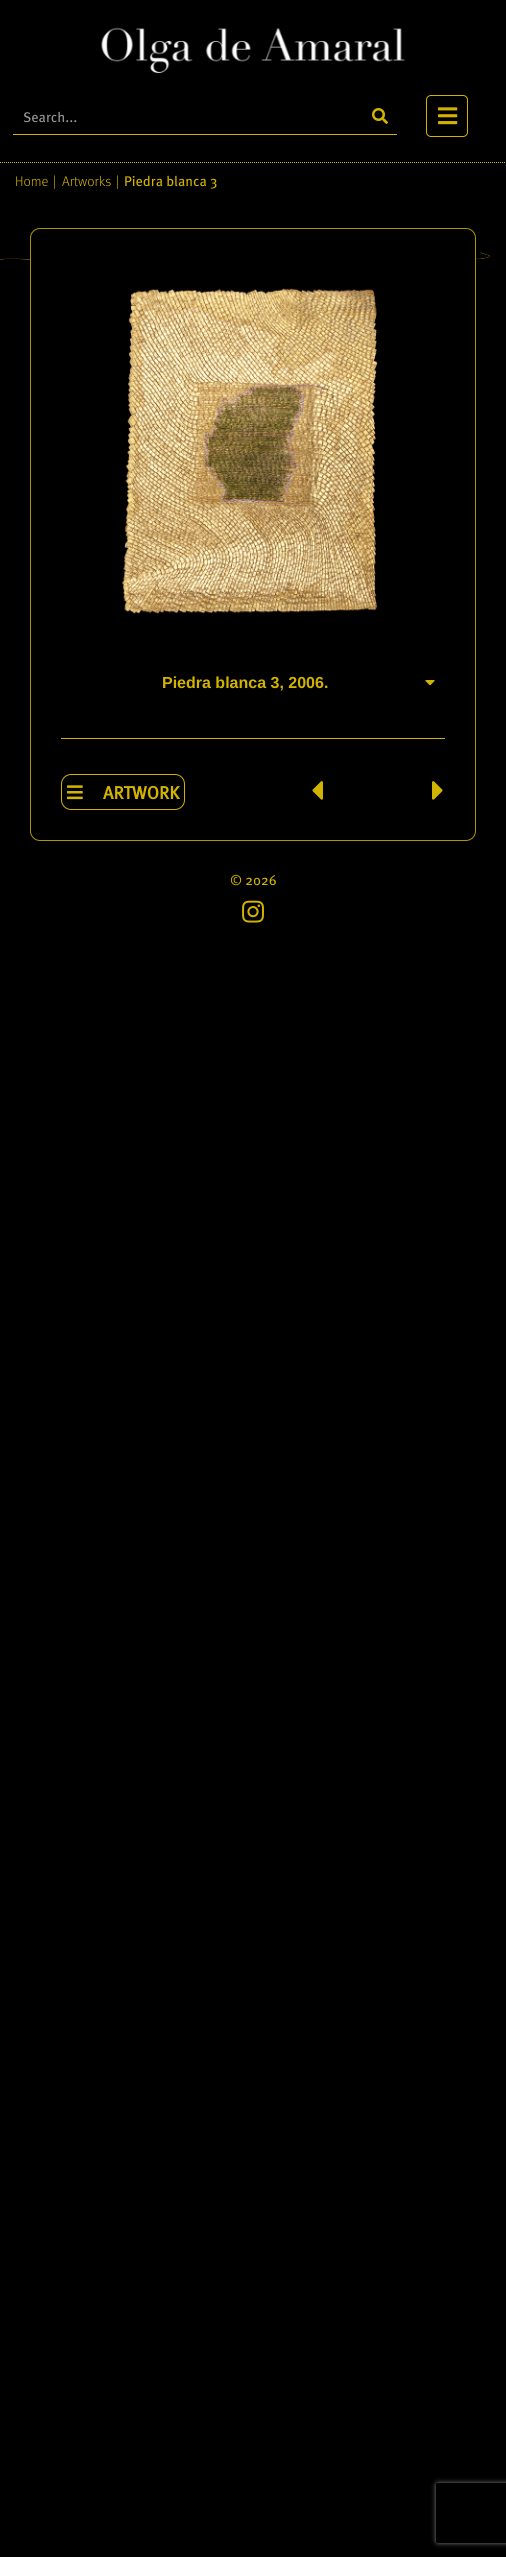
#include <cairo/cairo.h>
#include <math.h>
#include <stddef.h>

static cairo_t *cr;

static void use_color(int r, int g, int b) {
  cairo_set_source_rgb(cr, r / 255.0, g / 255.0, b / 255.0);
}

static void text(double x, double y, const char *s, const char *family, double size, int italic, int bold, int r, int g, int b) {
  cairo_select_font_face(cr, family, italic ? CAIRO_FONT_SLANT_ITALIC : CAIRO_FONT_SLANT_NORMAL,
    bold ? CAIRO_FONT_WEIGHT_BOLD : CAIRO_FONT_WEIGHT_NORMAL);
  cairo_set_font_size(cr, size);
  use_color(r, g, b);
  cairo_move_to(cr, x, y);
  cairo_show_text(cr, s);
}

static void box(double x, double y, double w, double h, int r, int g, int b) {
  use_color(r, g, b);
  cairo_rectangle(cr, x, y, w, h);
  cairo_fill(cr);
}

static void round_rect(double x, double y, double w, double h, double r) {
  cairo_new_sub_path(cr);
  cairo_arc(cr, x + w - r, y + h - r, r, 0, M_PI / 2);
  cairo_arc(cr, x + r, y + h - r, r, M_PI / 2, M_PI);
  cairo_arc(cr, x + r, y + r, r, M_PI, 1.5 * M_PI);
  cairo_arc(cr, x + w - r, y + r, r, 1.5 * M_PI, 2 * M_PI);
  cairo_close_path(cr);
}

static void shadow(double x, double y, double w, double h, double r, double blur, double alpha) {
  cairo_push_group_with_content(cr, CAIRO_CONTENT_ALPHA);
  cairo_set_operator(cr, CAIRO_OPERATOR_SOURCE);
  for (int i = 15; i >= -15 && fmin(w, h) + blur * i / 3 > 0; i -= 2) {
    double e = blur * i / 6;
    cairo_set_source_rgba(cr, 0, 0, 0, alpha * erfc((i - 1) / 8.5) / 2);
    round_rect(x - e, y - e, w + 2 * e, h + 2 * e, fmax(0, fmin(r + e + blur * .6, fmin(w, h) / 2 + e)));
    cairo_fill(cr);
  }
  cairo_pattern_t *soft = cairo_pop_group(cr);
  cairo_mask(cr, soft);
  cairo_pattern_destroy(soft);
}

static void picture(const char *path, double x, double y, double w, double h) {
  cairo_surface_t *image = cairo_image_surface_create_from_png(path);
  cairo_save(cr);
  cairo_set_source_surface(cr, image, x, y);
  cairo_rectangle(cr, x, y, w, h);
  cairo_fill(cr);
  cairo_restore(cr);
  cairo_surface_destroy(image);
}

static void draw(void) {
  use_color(0, 0, 0);
  cairo_paint(cr);
  cairo_new_path(cr);
  cairo_move_to(cr, 0, 162.5);
  cairo_line_to(cr, 506, 162.5);
  use_color(210, 180, 0);
  cairo_set_line_width(cr, 1);
  cairo_set_dash(cr, (double[]){1, 1}, 2, 0);
  cairo_stroke(cr);
  picture("img_01.png", 101, 27, 304, 47);
  box(13, 134, 384, 1, 210, 180, 0);
  picture("img_02.png", 372, 108, 16, 16);
  round_rect(426.5, 95.5, 41, 41, 4.5);
  cairo_set_dash(cr, NULL, 0, 0);
  cairo_stroke(cr);
  picture("img_03.png", 438, 107, 20, 18);
  picture("img_04.png", 0, 250, 491, 22);
  use_color(0, 0, 0);
  round_rect(30.5, 228.5, 445, 612, 9.5);
  cairo_fill_preserve(cr);
  use_color(175, 150, 0);
  cairo_stroke(cr);
  picture("img_05.png", 121, 288, 257, 326);
  picture("img_06.png", 425, 680, 10, 6);
  box(61, 738, 384, 1, 210, 180, 0);
  round_rect(61.5, 774.5, 123, 35, 9.5);
  cairo_stroke(cr);
  picture("img_07.png", 67, 785, 16, 15);
  picture("img_08.png", 312, 781, 11, 19);
  picture("img_09.png", 432, 781, 11, 19);
  picture("img_10.png", 242, 900, 22, 23);
  cairo_save(cr);
  cairo_set_fill_rule(cr, CAIRO_FILL_RULE_EVEN_ODD);
  cairo_new_path(cr);
  cairo_move_to(cr, 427, 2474);
  cairo_line_to(cr, 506, 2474);
  cairo_line_to(cr, 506, 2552);
  cairo_line_to(cr, 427, 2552);
  cairo_close_path(cr);
  cairo_move_to(cr, 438, 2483);
  cairo_line_to(cr, 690, 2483);
  cairo_curve_to(cr, 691, 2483, 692, 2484, 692, 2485);
  cairo_line_to(cr, 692, 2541);
  cairo_curve_to(cr, 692, 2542, 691, 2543, 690, 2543);
  cairo_line_to(cr, 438, 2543);
  cairo_curve_to(cr, 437, 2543, 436, 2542, 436, 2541);
  cairo_line_to(cr, 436, 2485);
  cairo_curve_to(cr, 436, 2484, 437, 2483, 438, 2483);
  cairo_close_path(cr);
  cairo_clip(cr);
  use_color(128, 128, 128);
  shadow(436, 2483, 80, 60, 2, 2.5, 1);
  cairo_restore(cr);
  text(23, 122, "Search...", "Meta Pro", 14, 0, 0, 153, 153, 153);
  text(15, 186, "Home", "Meta Pro Light", 14, 0, 0, 210, 180, 0);
  text(53, 186, "|", "Meta Pro Light", 14, 0, 0, 210, 180, 0);
  text(62, 186, "Artworks", "Meta Pro Light", 14, 0, 0, 210, 180, 0);
  text(116, 186, "|", "Meta Pro Light", 14, 0, 0, 210, 180, 0);
  text(124, 186, "Piedra blanca 3", "Meta Pro", 14, 0, 0, 210, 180, 0);
  text(162, 688, "Piedra blanca 3, 2006.", "Liberation Sans", 16, 0, 1, 210, 180, 0);
  text(103, 799, "ARTWORK", "Meta Pro", 18, 0, 1, 210, 180, 0);
  text(230, 885, "© 2026", "Meta Pro", 14, 0, 0, 210, 180, 0);
}

int main(void) {
  cairo_surface_t *surface = cairo_image_surface_create(CAIRO_FORMAT_RGB24, 506, 2557);
  cr = cairo_create(surface);
  cairo_font_options_t *options = cairo_font_options_create();
  cairo_font_options_set_hint_metrics(options, CAIRO_HINT_METRICS_OFF);
  cairo_font_options_set_hint_style(options, CAIRO_HINT_STYLE_NONE);
  cairo_set_font_options(cr, options);
  cairo_set_miter_limit(cr, 4);
  draw();
  cairo_surface_write_to_png(surface, "out.png");
  cairo_font_options_destroy(options);
  cairo_destroy(cr);
  cairo_surface_destroy(surface);
  return 0;
}
